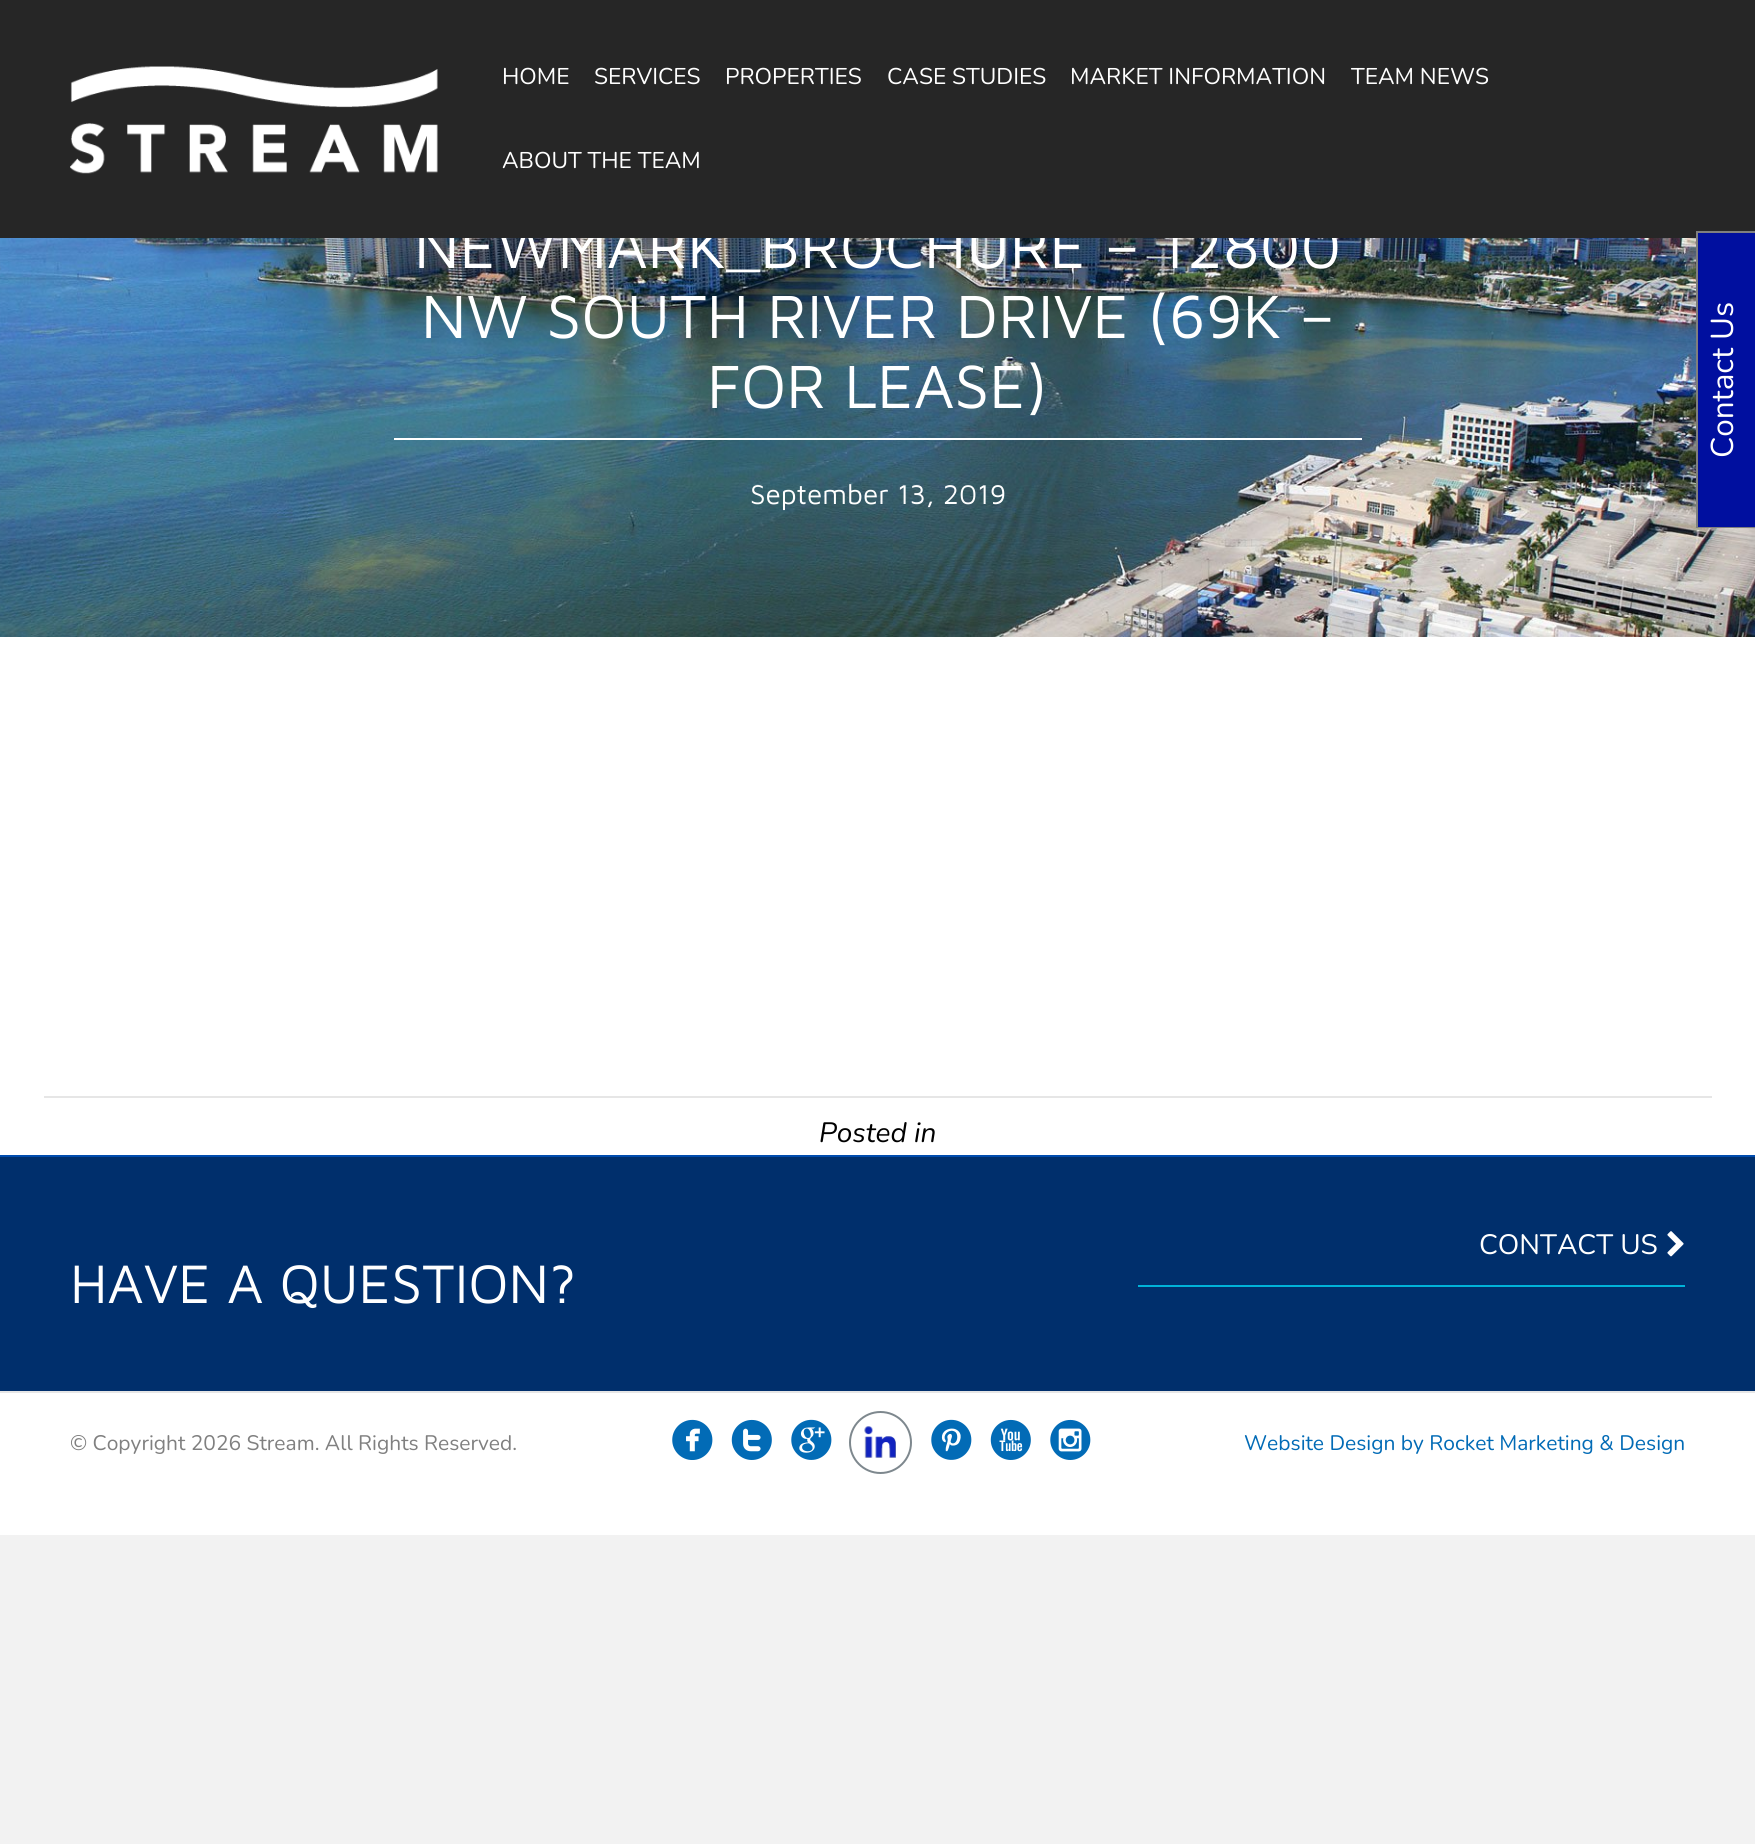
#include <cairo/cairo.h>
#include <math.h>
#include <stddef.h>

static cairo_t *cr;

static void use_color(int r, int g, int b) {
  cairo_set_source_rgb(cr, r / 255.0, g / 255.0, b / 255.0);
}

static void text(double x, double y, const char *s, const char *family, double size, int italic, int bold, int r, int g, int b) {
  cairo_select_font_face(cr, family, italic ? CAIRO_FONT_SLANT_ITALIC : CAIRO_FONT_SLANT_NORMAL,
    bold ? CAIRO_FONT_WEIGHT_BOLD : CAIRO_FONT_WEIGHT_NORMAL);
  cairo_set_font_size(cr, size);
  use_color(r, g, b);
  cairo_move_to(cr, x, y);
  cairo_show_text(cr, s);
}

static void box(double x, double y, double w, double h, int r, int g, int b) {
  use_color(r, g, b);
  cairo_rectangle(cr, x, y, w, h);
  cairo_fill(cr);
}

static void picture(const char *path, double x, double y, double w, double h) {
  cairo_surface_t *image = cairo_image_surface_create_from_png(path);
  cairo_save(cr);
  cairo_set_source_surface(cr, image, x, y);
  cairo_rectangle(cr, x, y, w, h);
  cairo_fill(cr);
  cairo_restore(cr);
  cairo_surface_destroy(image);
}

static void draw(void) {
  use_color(242, 242, 242);
  cairo_paint(cr);
  box(0, 637, 1755, 518, 255, 255, 255);
  picture("img_02.png", 0, 238, 1755, 399);
  box(394, 438, 968, 2, 255, 255, 255);
  box(44, 1096, 1668, 2, 230, 230, 230);
  box(0, 1157, 1755, 234, 0, 47, 108);
  box(0, 1155, 1755, 2, 0, 76, 174);
  box(1138, 1285, 547, 2, 0, 179, 217);
  picture("img_03.png", 1667, 1231, 17, 26);
  box(0, 1393, 1755, 142, 255, 255, 255);
  box(0, 1391, 1755, 2, 230, 230, 230);
  picture("img_04.png", 672, 1419, 41, 41);
  picture("img_05.png", 731, 1419, 41, 41);
  picture("img_06.png", 791, 1419, 41, 41);
  picture("img_07.png", 864, 1426, 32, 32);
  cairo_arc(cr, 880.5, 1442.5, 30.5, 0, 2 * M_PI);
  use_color(126, 136, 142);
  cairo_stroke(cr);
  picture("img_08.png", 931, 1419, 41, 41);
  picture("img_09.png", 990, 1419, 41, 41);
  picture("img_10.png", 1050, 1419, 41, 41);
  text(414, 268, "NEWMARK_BROCHURE – 12800", "Maven Pro", 63, 0, 0, 255, 255, 255);
  box(0, 0, 1755, 238, 38, 38, 38);
  text(502, 168, "ABOUT THE TEAM", "Nunito", 22.75, 0, 0, 255, 255, 255);
  text(1351, 84, "TEAM NEWS", "Nunito", 22.75, 0, 0, 255, 255, 255);
  text(1070, 84, "MARKET INFORMATION", "Nunito", 22.75, 0, 0, 255, 255, 255);
  text(887, 84, "CASE STUDIES", "Nunito", 22.75, 0, 0, 255, 255, 255);
  text(725, 84, "PROPERTIES", "Nunito", 22.75, 0, 0, 255, 255, 255);
  text(594, 84, "SERVICES", "Nunito", 22.75, 0, 0, 255, 255, 255);
  text(502, 84, "HOME", "Nunito", 22.75, 0, 0, 255, 255, 255);
  picture("img_01.png", 70, 66, 368, 108);
  text(421, 338, "NW SOUTH RIVER DRIVE (69K –", "Maven Pro", 63, 0, 0, 255, 255, 255);
  text(707, 408, "FOR LEASE)", "Maven Pro", 63, 0, 0, 255, 255, 255);
  text(750, 504, "September 13, 2019", "Maven Pro", 28, 0, 0, 255, 255, 255);
  text(819, 1142, "Posted in", "Nunito", 28, 1, 0, 0, 0, 0);
  text(1479, 1254, "CONTACT US", "Nunito", 28, 0, 0, 255, 255, 255);
  text(70, 1303, "HAVE A QUESTION?", "Maven Pro", 56, 0, 0, 255, 255, 255);
  text(70, 1450, "© Copyright 2026 Stream. All Rights Reserved.", "Nunito", 21, 0, 0, 128, 128, 128);
  text(1244, 1450, "Website Design by Rocket Marketing & Design", "Nunito", 21, 0, 0, 2, 107, 182);
  box(1698, 233, 57, 294, 0, 15, 159);
  box(1696, 231, 2, 297, 127, 127, 127);
  box(1696, 231, 59, 2, 127, 127, 127);
  box(1696, 527, 59, 1, 127, 127, 127);
  cairo_save(cr);
  cairo_translate(cr, 1733, 458);
  cairo_rotate(cr, -90 * M_PI / 180);
  text(0, 0, "Contact Us", "Nunito", 31.5, 0, 0, 255, 255, 255);
  cairo_restore(cr);
}

int main(void) {
  cairo_surface_t *surface = cairo_image_surface_create(CAIRO_FORMAT_RGB24, 1755, 1844);
  cr = cairo_create(surface);
  cairo_font_options_t *options = cairo_font_options_create();
  cairo_font_options_set_hint_metrics(options, CAIRO_HINT_METRICS_OFF);
  cairo_font_options_set_hint_style(options, CAIRO_HINT_STYLE_NONE);
  cairo_set_font_options(cr, options);
  cairo_set_miter_limit(cr, 4);
  draw();
  cairo_surface_write_to_png(surface, "out.png");
  cairo_font_options_destroy(options);
  cairo_destroy(cr);
  cairo_surface_destroy(surface);
  return 0;
}
